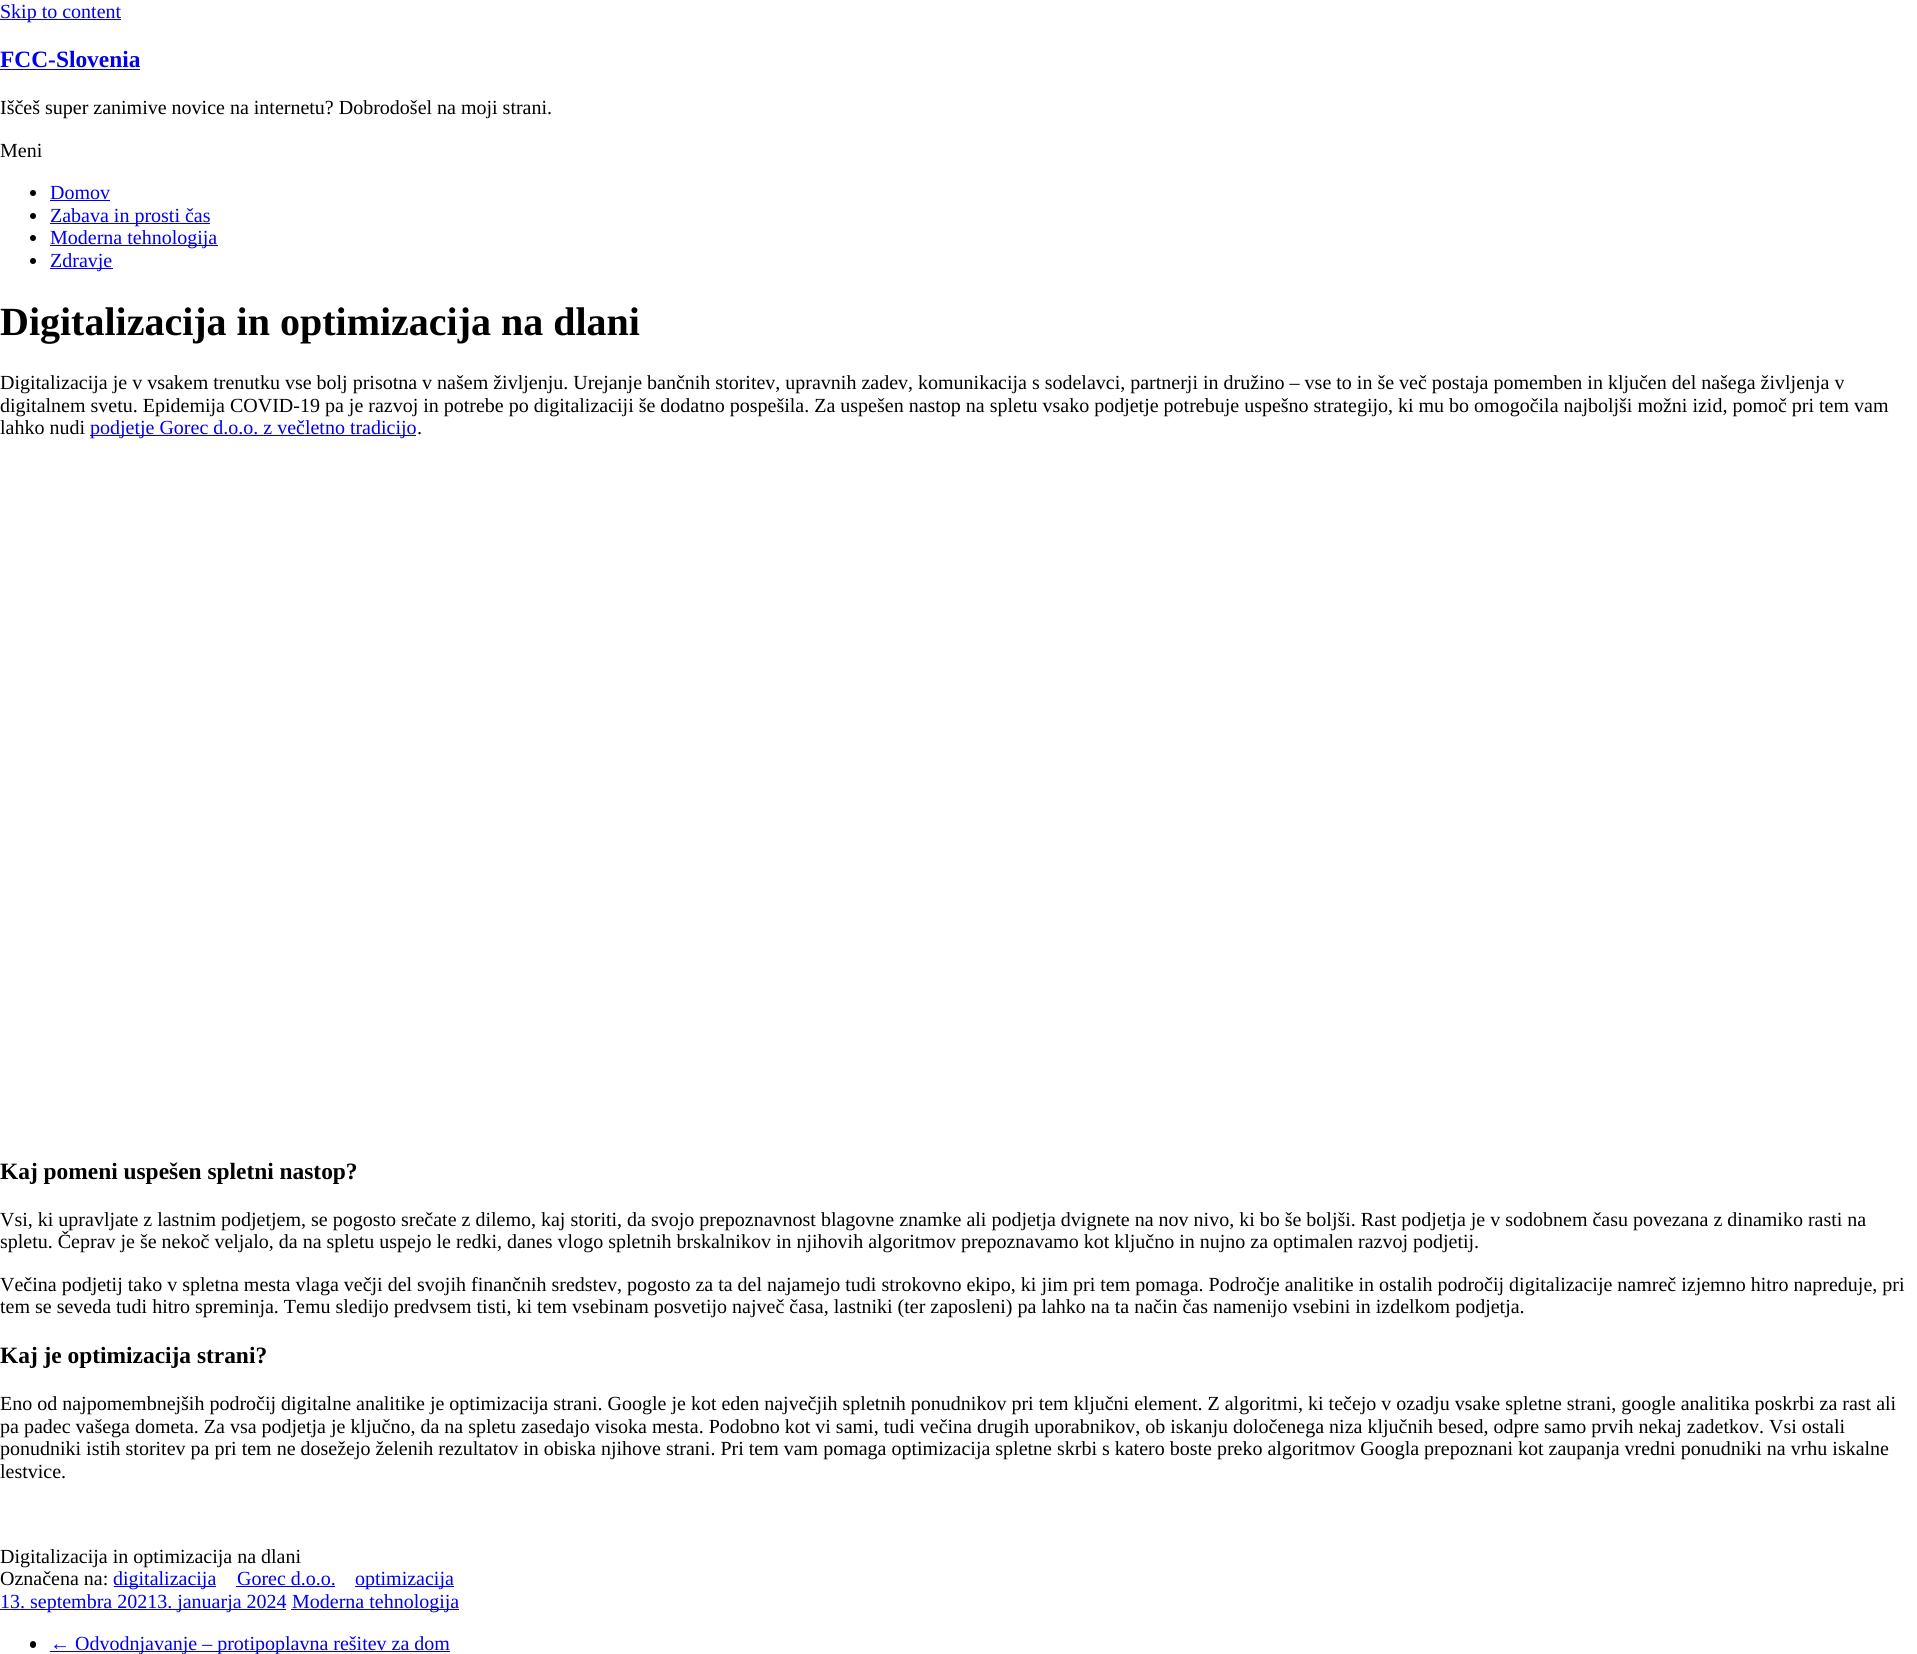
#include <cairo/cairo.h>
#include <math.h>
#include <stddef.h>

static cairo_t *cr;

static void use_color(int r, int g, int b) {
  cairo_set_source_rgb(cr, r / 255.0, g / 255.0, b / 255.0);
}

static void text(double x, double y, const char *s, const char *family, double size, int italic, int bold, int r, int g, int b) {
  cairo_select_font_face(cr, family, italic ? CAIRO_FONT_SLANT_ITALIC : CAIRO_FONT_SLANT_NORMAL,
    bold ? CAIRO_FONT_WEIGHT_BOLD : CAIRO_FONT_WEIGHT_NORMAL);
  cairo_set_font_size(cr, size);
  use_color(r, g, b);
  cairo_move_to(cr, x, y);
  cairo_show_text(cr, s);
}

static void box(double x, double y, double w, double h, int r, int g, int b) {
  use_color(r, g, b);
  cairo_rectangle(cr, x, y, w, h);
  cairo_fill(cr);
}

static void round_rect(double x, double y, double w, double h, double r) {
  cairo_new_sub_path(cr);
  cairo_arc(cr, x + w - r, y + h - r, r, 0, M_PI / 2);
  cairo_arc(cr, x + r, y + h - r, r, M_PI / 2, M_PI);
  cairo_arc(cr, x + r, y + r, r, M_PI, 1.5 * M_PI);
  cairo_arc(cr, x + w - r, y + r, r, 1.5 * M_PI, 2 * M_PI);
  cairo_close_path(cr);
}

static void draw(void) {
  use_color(255, 255, 255);
  cairo_paint(cr);
  box(0, 19, 121, 1, 0, 0, 238);
  box(0, 69, 140, 1, 0, 0, 238);
  use_color(0, 0, 0);
  cairo_arc(cr, 33, 193, 3, 0, 2 * M_PI);
  cairo_fill(cr);
  box(50, 200, 60, 1, 0, 0, 238);
  use_color(0, 0, 0);
  cairo_arc(cr, 33, 216, 3, 0, 2 * M_PI);
  cairo_fill(cr);
  box(50, 223, 160, 1, 0, 0, 238);
  use_color(0, 0, 0);
  cairo_arc(cr, 33, 238, 3, 0, 2 * M_PI);
  cairo_fill(cr);
  box(50, 245, 168, 1, 0, 0, 238);
  use_color(0, 0, 0);
  cairo_arc(cr, 33, 261, 3, 0, 2 * M_PI);
  cairo_fill(cr);
  box(50, 268, 63, 1, 0, 0, 238);
  box(90, 435, 326, 1, 0, 0, 238);
  box(114, 1586, 102, 1, 0, 0, 238);
  box(236, 1586, 99, 1, 0, 0, 238);
  box(355, 1586, 99, 1, 0, 0, 238);
  box(0, 1609, 286, 1, 0, 0, 238);
  box(291, 1609, 168, 1, 0, 0, 238);
  use_color(0, 0, 0);
  round_rect(30, 1641, 6, 7, 3);
  cairo_fill(cr);
  box(50, 1651, 400, 1, 0, 0, 238);
  text(0, 18, "Skip to content", "Liberation Serif", 20, 0, 0, 0, 0, 238);
  text(0, 67, "FCC-Slovenia", "Liberation Serif", 23.4, 0, 1, 0, 0, 238);
  text(0, 114, "Iščeš super zanimive novice na internetu? Dobrodošel na moji strani.", "Liberation Serif", 20, 0, 0, 0, 0, 0);
  text(0, 157, "Meni", "Liberation Serif", 20, 0, 0, 0, 0, 0);
  text(50, 199, "Domov", "Liberation Serif", 20, 0, 0, 0, 0, 238);
  text(50, 222, "Zabava in prosti čas", "Liberation Serif", 20, 0, 0, 0, 0, 238);
  text(50, 244, "Moderna tehnologija", "Liberation Serif", 20, 0, 0, 0, 0, 238);
  text(50, 267, "Zdravje", "Liberation Serif", 20, 0, 0, 0, 0, 238);
  text(0, 335, "Digitalizacija in optimizacija na dlani", "Liberation Serif", 40, 0, 1, 0, 0, 0);
  text(0, 389, "Digitalizacija je v vsakem trenutku vse bolj prisotna v našem življenju. Urejanje bančnih storitev, upravnih zadev, komunikacija s sodelavci, partnerji in družino – vse to in še več postaja pomemben in ključen del našega življenja v", "Liberation Serif", 20, 0, 0, 0, 0, 0);
  text(0, 412, "digitalnem svetu. Epidemija COVID-19 pa je razvoj in potrebe po digitalizaciji še dodatno pospešila. Za uspešen nastop na spletu vsako podjetje potrebuje uspešno strategijo, ki mu bo omogočila najboljši možni izid, pomoč pri tem vam", "Liberation Serif", 20, 0, 0, 0, 0, 0);
  text(0, 434, "lahko nudi", "Liberation Serif", 20, 0, 0, 0, 0, 0);
  text(90, 434, "podjetje Gorec d.o.o. z večletno tradicijo", "Liberation Serif", 20, 0, 0, 0, 0, 238);
  text(417, 434, ".", "Liberation Serif", 20, 0, 0, 0, 0, 0);
  text(0, 1179, "Kaj pomeni uspešen spletni nastop?", "Liberation Serif", 23.4, 0, 1, 0, 0, 0);
  text(0, 1226, "Vsi, ki upravljate z lastnim podjetjem, se pogosto srečate z dilemo, kaj storiti, da svojo prepoznavnost blagovne znamke ali podjetja dvignete na nov nivo, ki bo še boljši. Rast podjetja je v sodobnem času povezana z dinamiko rasti na", "Liberation Serif", 20, 0, 0, 0, 0, 0);
  text(0, 1248, "spletu. Čeprav je še nekoč veljalo, da na spletu uspejo le redki, danes vlogo spletnih brskalnikov in njihovih algoritmov prepoznavamo kot ključno in nujno za optimalen razvoj podjetij.", "Liberation Serif", 20, 0, 0, 0, 0, 0);
  text(0, 1291, "Večina podjetij tako v spletna mesta vlaga večji del svojih finančnih sredstev, pogosto za ta del najamejo tudi strokovno ekipo, ki jim pri tem pomaga. Področje analitike in ostalih področij digitalizacije namreč izjemno hitro napreduje, pri", "Liberation Serif", 20, 0, 0, 0, 0, 0);
  text(0, 1313, "tem se seveda tudi hitro spreminja. Temu sledijo predvsem tisti, ki tem vsebinam posvetijo največ časa, lastniki (ter zaposleni) pa lahko na ta način čas namenijo vsebini in izdelkom podjetja.", "Liberation Serif", 20, 0, 0, 0, 0, 0);
  text(0, 1363, "Kaj je optimizacija strani?", "Liberation Serif", 23.4, 0, 1, 0, 0, 0);
  text(0, 1410, "Eno od najpomembnejših področij digitalne analitike je optimizacija strani. Google je kot eden največjih spletnih ponudnikov pri tem ključni element. Z algoritmi, ki tečejo v ozadju vsake spletne strani, google analitika poskrbi za rast ali", "Liberation Serif", 20, 0, 0, 0, 0, 0);
  text(0, 1433, "pa padec vašega dometa. Za vsa podjetja je ključno, da na spletu zasedajo visoka mesta. Podobno kot vi sami, tudi večina drugih uporabnikov, ob iskanju določenega niza ključnih besed, odpre samo prvih nekaj zadetkov. Vsi ostali", "Liberation Serif", 20, 0, 0, 0, 0, 0);
  text(0, 1455, "ponudniki istih storitev pa pri tem ne dosežejo želenih rezultatov in obiska njihove strani. Pri tem vam pomaga optimizacija spletne skrbi s katero boste preko algoritmov Googla prepoznani kot zaupanja vredni ponudniki na vrhu iskalne", "Liberation Serif", 20, 0, 0, 0, 0, 0);
  text(0, 1478, "lestvice.", "Liberation Serif", 20, 0, 0, 0, 0, 0);
  text(0, 1563, "Digitalizacija in optimizacija na dlani", "Liberation Serif", 20, 0, 0, 0, 0, 0);
  text(0, 1585, "Označena na:", "Liberation Serif", 20, 0, 0, 0, 0, 0);
  text(113, 1585, "digitalizacija", "Liberation Serif", 20, 0, 0, 0, 0, 238);
  text(237, 1585, "Gorec d.o.o.", "Liberation Serif", 20, 0, 0, 0, 0, 238);
  text(355, 1585, "optimizacija", "Liberation Serif", 20, 0, 0, 0, 0, 238);
  text(0, 1608, "13. septembra 20213. januarja 2024", "Liberation Serif", 20, 0, 0, 0, 0, 238);
  text(292, 1608, "Moderna tehnologija", "Liberation Serif", 20, 0, 0, 0, 0, 238);
  text(50, 1650, "← Odvodnjavanje – protipoplavna rešitev za dom", "Liberation Serif", 20, 0, 0, 0, 0, 238);
}

int main(void) {
  cairo_surface_t *surface = cairo_image_surface_create(CAIRO_FORMAT_RGB24, 1917, 1654);
  cr = cairo_create(surface);
  cairo_font_options_t *options = cairo_font_options_create();
  cairo_font_options_set_hint_metrics(options, CAIRO_HINT_METRICS_OFF);
  cairo_font_options_set_hint_style(options, CAIRO_HINT_STYLE_NONE);
  cairo_set_font_options(cr, options);
  cairo_set_miter_limit(cr, 4);
  draw();
  cairo_surface_write_to_png(surface, "out.png");
  cairo_font_options_destroy(options);
  cairo_destroy(cr);
  cairo_surface_destroy(surface);
  return 0;
}
